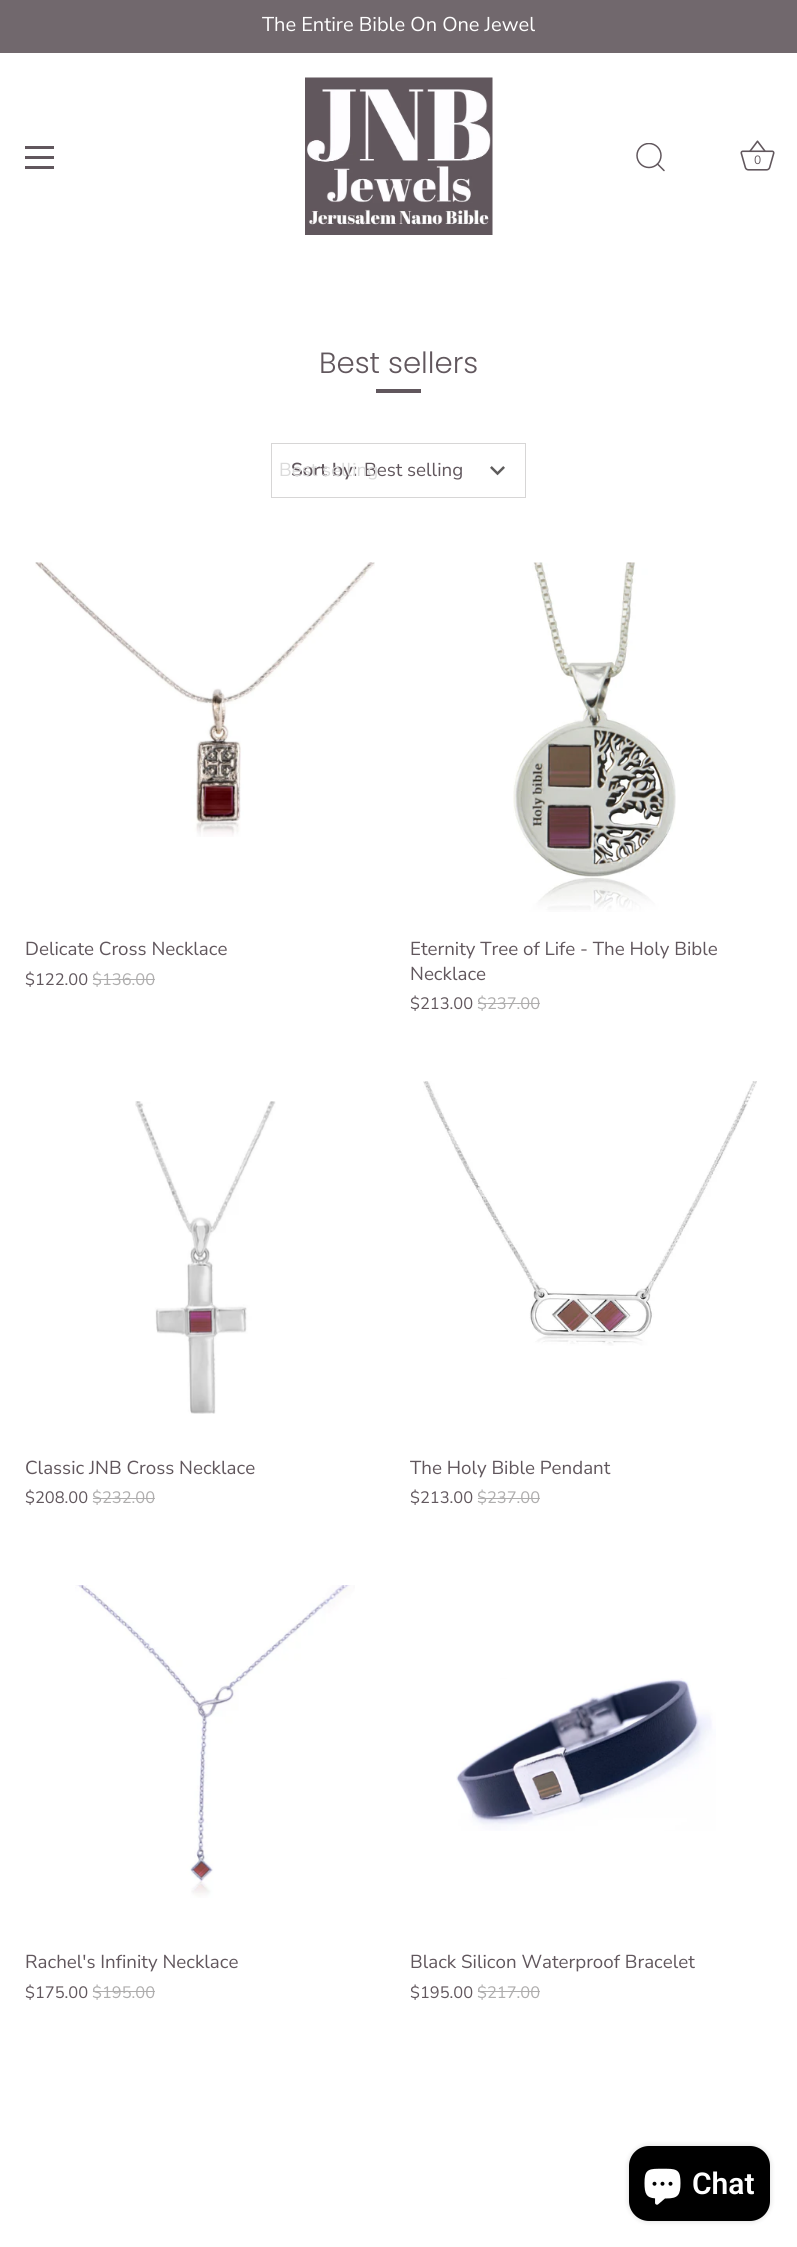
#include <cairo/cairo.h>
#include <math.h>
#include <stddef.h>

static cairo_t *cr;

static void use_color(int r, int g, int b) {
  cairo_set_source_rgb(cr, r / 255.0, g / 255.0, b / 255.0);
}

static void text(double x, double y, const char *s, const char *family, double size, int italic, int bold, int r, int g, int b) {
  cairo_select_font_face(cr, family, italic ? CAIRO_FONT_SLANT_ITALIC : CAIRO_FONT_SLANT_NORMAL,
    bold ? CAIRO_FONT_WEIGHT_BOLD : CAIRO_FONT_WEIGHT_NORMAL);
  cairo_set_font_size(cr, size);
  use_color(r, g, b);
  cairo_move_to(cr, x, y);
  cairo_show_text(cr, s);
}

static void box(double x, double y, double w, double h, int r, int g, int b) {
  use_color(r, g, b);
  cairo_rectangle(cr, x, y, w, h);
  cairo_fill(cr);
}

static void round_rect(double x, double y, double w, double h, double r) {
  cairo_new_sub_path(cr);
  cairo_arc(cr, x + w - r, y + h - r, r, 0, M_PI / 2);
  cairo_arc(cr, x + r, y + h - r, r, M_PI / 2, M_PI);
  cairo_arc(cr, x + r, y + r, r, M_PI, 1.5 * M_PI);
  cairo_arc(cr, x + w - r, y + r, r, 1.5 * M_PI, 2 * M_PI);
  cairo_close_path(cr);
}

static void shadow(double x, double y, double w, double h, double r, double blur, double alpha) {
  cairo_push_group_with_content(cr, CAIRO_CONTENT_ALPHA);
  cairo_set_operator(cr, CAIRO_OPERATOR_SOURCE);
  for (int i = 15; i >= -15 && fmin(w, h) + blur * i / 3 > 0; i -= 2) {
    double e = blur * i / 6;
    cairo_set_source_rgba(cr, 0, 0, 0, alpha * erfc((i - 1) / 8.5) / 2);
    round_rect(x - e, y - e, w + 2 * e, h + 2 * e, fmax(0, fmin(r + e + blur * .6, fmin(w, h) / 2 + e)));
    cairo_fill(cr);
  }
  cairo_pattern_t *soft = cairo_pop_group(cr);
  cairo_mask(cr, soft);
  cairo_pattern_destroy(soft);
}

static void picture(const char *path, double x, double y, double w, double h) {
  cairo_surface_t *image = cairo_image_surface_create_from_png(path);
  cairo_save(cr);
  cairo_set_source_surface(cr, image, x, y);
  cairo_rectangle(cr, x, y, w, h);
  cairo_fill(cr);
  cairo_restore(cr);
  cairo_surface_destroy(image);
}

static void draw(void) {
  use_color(255, 255, 255);
  cairo_paint(cr);
  box(0, 0, 797, 53, 113, 104, 109);
  box(25, 146, 29, 3, 97, 87, 93);
  box(25, 156, 29, 3, 97, 87, 93);
  box(25, 166, 29, 3, 97, 87, 93);
  picture("img_01.png", 305, 77, 188, 158);
  cairo_save(cr);
  cairo_rectangle(cr, 636, 143, 30, 30);
  cairo_clip(cr);
  cairo_arc(cr, 649, 155.5, 12, 0, 2 * M_PI);
  cairo_set_line_width(cr, 1.5);
  cairo_stroke(cr);
  cairo_restore(cr);
  cairo_new_path(cr);
  cairo_move_to(cr, 664, 170.5);
  cairo_line_to(cr, 657.5, 164);
  cairo_set_line_width(cr, 1.5);
  cairo_set_line_cap(cr, CAIRO_LINE_CAP_ROUND);
  cairo_set_line_join(cr, CAIRO_LINE_JOIN_ROUND);
  cairo_stroke(cr);
  picture("img_02.png", 740, 140, 35, 31);
  box(376, 389, 45, 4, 97, 87, 93);
  cairo_rectangle(cr, 271.5, 443.5, 254, 54);
  use_color(215, 214, 214);
  cairo_set_line_width(cr, 1);
  cairo_set_line_cap(cr, CAIRO_LINE_CAP_BUTT);
  cairo_set_line_join(cr, CAIRO_LINE_JOIN_MITER);
  cairo_stroke(cr);
  picture("img_03.png", 490, 466, 15, 10);
  picture("img_04.png", 35, 562, 340, 275);
  box(93, 979, 62, 1, 175, 174, 174);
  picture("img_05.png", 513, 562, 163, 350);
  box(478, 1003, 62, 1, 175, 174, 174);
  picture("img_06.png", 135, 1101, 141, 313);
  box(93, 1498, 62, 1, 175, 174, 174);
  picture("img_07.png", 423, 1081, 334, 265);
  box(478, 1498, 62, 1, 175, 174, 174);
  picture("img_08.png", 75, 1585, 280, 313);
  box(93, 1991, 62, 1, 175, 174, 174);
  picture("img_09.png", 456, 1678, 260, 153);
  box(478, 1991, 62, 1, 175, 174, 174);
  use_color(0, 0, 0);
  shadow(629, 2146, 141, 75, 20, 3, 0.15);
  use_color(0, 0, 0);
  round_rect(629, 2146, 141, 75, 20);
  cairo_fill(cr);
  picture("img_10.png", 644, 2168, 37, 37);
  text(262, 31, "The Entire Bible On One Jewel", "Nunito Sans", 20, 0, 0, 255, 255, 255);
  text(754, 164, "0", "Nunito Sans", 12, 0, 0, 97, 87, 93);
  text(319, 373, "Best sellers", "Poppins Light", 29.25, 0, 0, 97, 87, 93);
  text(291, 476, "Sort by:", "Nunito Sans SemiBold", 18.75, 0, 0, 97, 87, 93);
  text(364, 476, "Best selling", "Nunito Sans", 18.75, 0, 0, 97, 87, 93);
  text(279, 476, "Best selling", "Nunito Sans", 18.75, 0, 0, 219, 219, 219);
  text(25, 955, "Delicate Cross Necklace", "Nunito Sans", 18.75, 0, 0, 97, 87, 93);
  text(25, 985, "$122.00", "Nunito Sans", 16.5, 0, 0, 97, 87, 93);
  text(92, 985, "$136.00", "Nunito Sans", 16.5, 0, 0, 175, 174, 174);
  text(410, 955, "Eternity Tree of Life - The Holy Bible", "Nunito Sans", 18.75, 0, 0, 97, 87, 93);
  text(410, 980, "Necklace", "Nunito Sans", 18.75, 0, 0, 97, 87, 93);
  text(410, 1009, "$213.00", "Nunito Sans", 16.5, 0, 0, 97, 87, 93);
  text(477, 1009, "$237.00", "Nunito Sans", 16.5, 0, 0, 175, 174, 174);
  text(25, 1474, "Classic JNB Cross Necklace", "Nunito Sans", 18.75, 0, 0, 97, 87, 93);
  text(25, 1503, "$208.00", "Nunito Sans", 16.5, 0, 0, 97, 87, 93);
  text(92, 1503, "$232.00", "Nunito Sans", 16.5, 0, 0, 175, 174, 174);
  text(410, 1474, "The Holy Bible Pendant", "Nunito Sans", 18.75, 0, 0, 97, 87, 93);
  text(410, 1503, "$213.00", "Nunito Sans", 16.5, 0, 0, 97, 87, 93);
  text(477, 1503, "$237.00", "Nunito Sans", 16.5, 0, 0, 175, 174, 174);
  text(25, 1968, "Rachel's Infinity Necklace", "Nunito Sans", 18.75, 0, 0, 97, 87, 93);
  text(25, 1998, "$175.00", "Nunito Sans", 16.5, 0, 0, 97, 87, 93);
  text(92, 1998, "$195.00", "Nunito Sans", 16.5, 0, 0, 175, 174, 174);
  text(410, 1968, "Black Silicon Waterproof Bracelet", "Nunito Sans", 18.75, 0, 0, 97, 87, 93);
  text(410, 1998, "$195.00", "Nunito Sans", 16.5, 0, 0, 97, 87, 93);
  text(477, 1998, "$217.00", "Nunito Sans", 16.5, 0, 0, 175, 174, 174);
  text(692, 2194, "Chat", "Roboto SemiBold", 30, 0, 0, 255, 255, 255);
}

int main(void) {
  cairo_surface_t *surface = cairo_image_surface_create(CAIRO_FORMAT_RGB24, 797, 2247);
  cr = cairo_create(surface);
  cairo_font_options_t *options = cairo_font_options_create();
  cairo_font_options_set_hint_metrics(options, CAIRO_HINT_METRICS_OFF);
  cairo_font_options_set_hint_style(options, CAIRO_HINT_STYLE_NONE);
  cairo_set_font_options(cr, options);
  cairo_set_miter_limit(cr, 4);
  draw();
  cairo_surface_write_to_png(surface, "out.png");
  cairo_font_options_destroy(options);
  cairo_destroy(cr);
  cairo_surface_destroy(surface);
  return 0;
}
